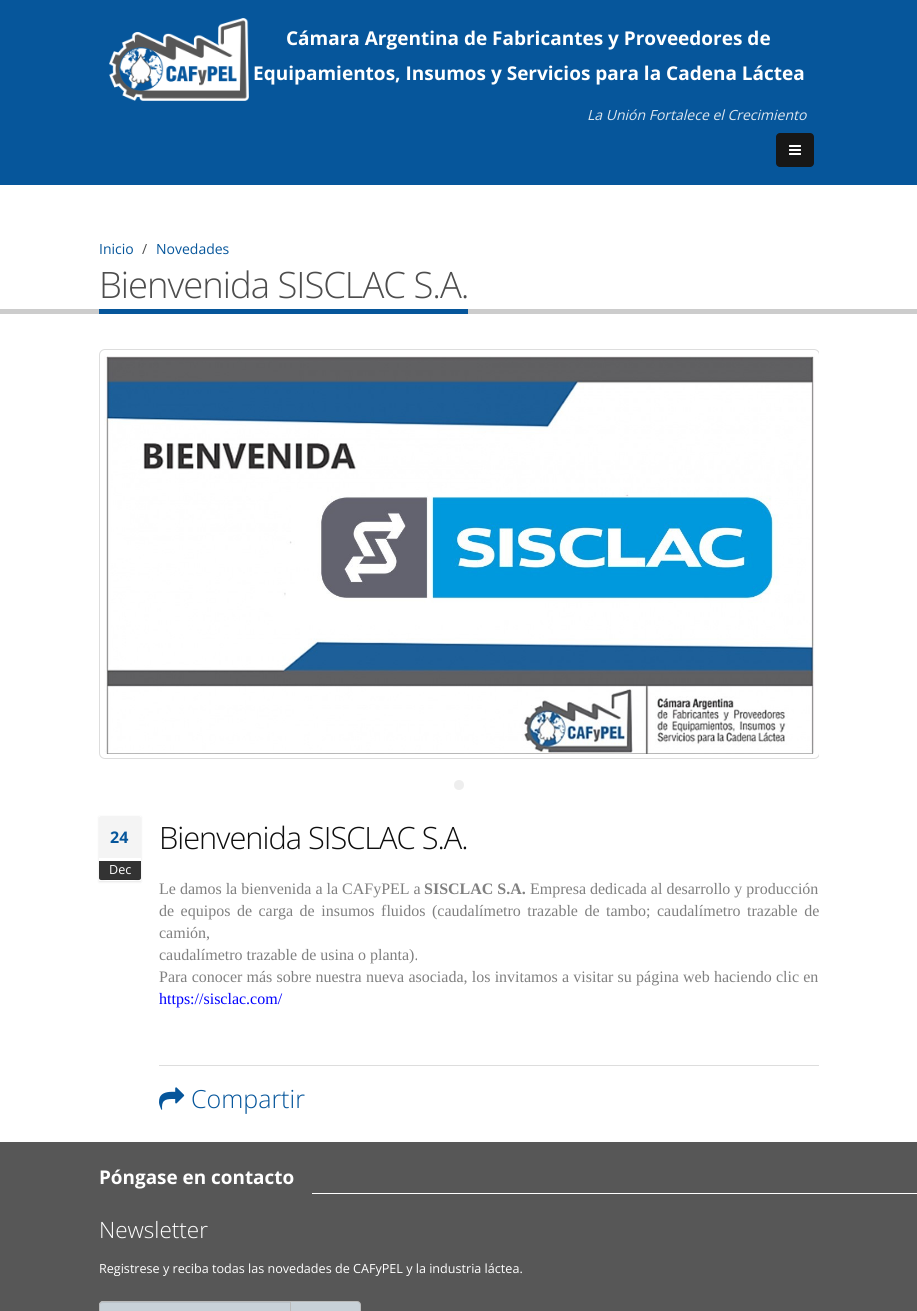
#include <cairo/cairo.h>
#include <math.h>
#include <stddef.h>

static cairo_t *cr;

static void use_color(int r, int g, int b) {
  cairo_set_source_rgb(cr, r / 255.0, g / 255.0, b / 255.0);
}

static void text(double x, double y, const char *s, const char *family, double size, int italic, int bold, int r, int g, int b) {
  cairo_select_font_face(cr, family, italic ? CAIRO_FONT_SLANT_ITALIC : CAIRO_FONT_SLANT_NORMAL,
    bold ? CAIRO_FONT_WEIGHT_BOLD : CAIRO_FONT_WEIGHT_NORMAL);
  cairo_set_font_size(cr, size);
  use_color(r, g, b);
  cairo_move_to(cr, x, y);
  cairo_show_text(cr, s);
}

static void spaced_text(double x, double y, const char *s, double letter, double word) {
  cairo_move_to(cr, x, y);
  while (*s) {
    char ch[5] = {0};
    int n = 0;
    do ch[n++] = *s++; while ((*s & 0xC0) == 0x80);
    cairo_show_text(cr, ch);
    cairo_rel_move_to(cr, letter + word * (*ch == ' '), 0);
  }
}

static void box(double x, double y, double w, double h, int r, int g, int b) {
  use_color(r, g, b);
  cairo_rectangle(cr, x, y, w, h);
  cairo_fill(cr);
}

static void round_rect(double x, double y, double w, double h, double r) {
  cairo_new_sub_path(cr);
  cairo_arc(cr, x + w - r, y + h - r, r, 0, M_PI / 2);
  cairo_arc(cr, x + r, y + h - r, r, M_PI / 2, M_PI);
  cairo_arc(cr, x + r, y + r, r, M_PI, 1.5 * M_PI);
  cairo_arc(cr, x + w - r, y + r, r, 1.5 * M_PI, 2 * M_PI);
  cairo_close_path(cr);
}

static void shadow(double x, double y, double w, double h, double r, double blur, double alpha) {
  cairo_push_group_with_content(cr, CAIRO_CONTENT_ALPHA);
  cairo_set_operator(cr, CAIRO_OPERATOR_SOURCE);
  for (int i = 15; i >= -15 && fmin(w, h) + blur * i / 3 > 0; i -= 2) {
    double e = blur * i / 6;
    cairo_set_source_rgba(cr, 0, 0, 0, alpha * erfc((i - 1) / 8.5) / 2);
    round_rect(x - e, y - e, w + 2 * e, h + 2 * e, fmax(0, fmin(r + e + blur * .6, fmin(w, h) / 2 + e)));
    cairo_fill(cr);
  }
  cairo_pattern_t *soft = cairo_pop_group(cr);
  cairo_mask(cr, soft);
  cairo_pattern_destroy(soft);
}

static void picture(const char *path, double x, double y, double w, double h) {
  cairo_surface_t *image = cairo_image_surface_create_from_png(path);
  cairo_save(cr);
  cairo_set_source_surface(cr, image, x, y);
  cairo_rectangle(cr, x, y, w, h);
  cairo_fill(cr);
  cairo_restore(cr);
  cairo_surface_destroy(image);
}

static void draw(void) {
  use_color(255, 255, 255);
  cairo_paint(cr);
  box(0, 0, 917, 185, 6, 86, 155);
  picture("img_01.png", 109, 18, 140, 83);
  use_color(23, 23, 23);
  round_rect(776, 133, 38, 34, 4);
  cairo_fill(cr);
  picture("img_02.png", 789, 145, 12, 10);
  box(0, 309, 917, 5, 204, 204, 204);
  box(99, 309, 369, 5, 6, 86, 155);
  cairo_save(cr);
  cairo_rectangle(cr, 99, 349, 720, 416);
  cairo_clip(cr);
  round_rect(99.5, 349.5, 720, 409, 5.5);
  use_color(221, 221, 221);
  cairo_set_line_width(cr, 1);
  cairo_stroke(cr);
  cairo_restore(cr);
  picture("img_03.png", 104, 356, 711, 398);
  use_color(238, 238, 238);
  cairo_arc(cr, 459, 785, 5, 0, 2 * M_PI);
  cairo_fill(cr);
  cairo_save(cr);
  cairo_set_fill_rule(cr, CAIRO_FILL_RULE_EVEN_ODD);
  cairo_new_path(cr);
  cairo_move_to(cr, 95, 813);
  cairo_line_to(cr, 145, 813);
  cairo_line_to(cr, 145, 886);
  cairo_line_to(cr, 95, 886);
  cairo_close_path(cr);
  cairo_move_to(cr, 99, 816);
  cairo_line_to(cr, 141, 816);
  cairo_line_to(cr, 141, 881);
  cairo_line_to(cr, 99, 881);
  cairo_close_path(cr);
  cairo_clip(cr);
  use_color(0, 0, 0);
  shadow(99, 817, 42, 65, 0, 1, 0.1);
  cairo_restore(cr);
  use_color(244, 244, 244);
  cairo_new_path(cr);
  cairo_move_to(cr, 101, 816);
  cairo_line_to(cr, 139, 816);
  cairo_curve_to(cr, 140, 816, 141, 817, 141, 818);
  cairo_line_to(cr, 141, 858);
  cairo_line_to(cr, 99, 858);
  cairo_line_to(cr, 99, 818);
  cairo_curve_to(cr, 99, 817, 100, 816, 101, 816);
  cairo_close_path(cr);
  cairo_fill(cr);
  use_color(51, 51, 51);
  cairo_new_path(cr);
  cairo_move_to(cr, 99, 861);
  cairo_line_to(cr, 141, 861);
  cairo_line_to(cr, 141, 878);
  cairo_curve_to(cr, 141, 879, 140, 880, 139, 880);
  cairo_line_to(cr, 101, 880);
  cairo_curve_to(cr, 100, 880, 99, 879, 99, 878);
  cairo_close_path(cr);
  cairo_fill(cr);
  cairo_set_source_rgba(cr, 0, 0, 0, 0.07);
  cairo_new_path(cr);
  cairo_move_to(cr, 99, 877);
  cairo_curve_to(cr, 99, 882, 104, 880, 107, 880);
  cairo_line_to(cr, 133, 880);
  cairo_curve_to(cr, 136, 880, 141, 882, 141, 877);
  cairo_curve_to(cr, 141, 878, 140, 879, 139, 879);
  cairo_line_to(cr, 101, 879);
  cairo_curve_to(cr, 100, 879, 99, 878, 99, 877);
  cairo_close_path(cr);
  cairo_fill(cr);
  box(159, 1065, 660, 1, 221, 221, 221);
  picture("img_04.png", 159, 1087, 26, 23);
  box(0, 1142, 917, 169, 87, 87, 87);
  box(312, 1193, 605, 1, 255, 255, 255);
  use_color(200, 209, 216);
  cairo_new_path(cr);
  cairo_move_to(cr, 290.5, 1301.5);
  cairo_line_to(cr, 357, 1301.5);
  cairo_curve_to(cr, 359, 1301.5, 360.5, 1303, 360.5, 1305);
  cairo_line_to(cr, 360.5, 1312);
  cairo_curve_to(cr, 360.5, 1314, 359, 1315.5, 357, 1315.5);
  cairo_line_to(cr, 290.5, 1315.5);
  cairo_close_path(cr);
  cairo_fill_preserve(cr);
  use_color(186, 186, 186);
  cairo_set_line_width(cr, 1);
  cairo_stroke(cr);
  use_color(200, 209, 216);
  cairo_new_path(cr);
  cairo_move_to(cr, 103, 1301);
  cairo_line_to(cr, 291, 1301);
  cairo_line_to(cr, 291, 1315);
  cairo_line_to(cr, 103, 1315);
  cairo_curve_to(cr, 101, 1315, 99, 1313, 99, 1311);
  cairo_line_to(cr, 99, 1305);
  cairo_curve_to(cr, 99, 1303, 101, 1301, 103, 1301);
  cairo_close_path(cr);
  cairo_fill(cr);
  use_color(186, 194, 201);
  cairo_new_path(cr);
  cairo_move_to(cr, 103, 1303);
  cairo_line_to(cr, 290, 1303);
  cairo_line_to(cr, 290, 1302);
  cairo_line_to(cr, 103, 1302);
  cairo_curve_to(cr, 101, 1302, 100, 1304, 100, 1306);
  cairo_curve_to(cr, 100, 1304, 101, 1303, 103, 1303);
  cairo_close_path(cr);
  cairo_fill(cr);
  cairo_new_path(cr);
  cairo_move_to(cr, 103, 1301.5);
  cairo_line_to(cr, 290.5, 1301.5);
  cairo_line_to(cr, 290.5, 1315.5);
  cairo_line_to(cr, 103, 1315.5);
  cairo_curve_to(cr, 101, 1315.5, 99.5, 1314, 99.5, 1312);
  cairo_line_to(cr, 99.5, 1305);
  cairo_curve_to(cr, 99.5, 1303, 101, 1301.5, 103, 1301.5);
  cairo_close_path(cr);
  use_color(186, 186, 186);
  cairo_stroke(cr);
  text(286, 45, "Cámara Argentina de Fabricantes y Proveedores de", "Open Sans", 19, 0, 1, 255, 255, 255);
  text(253, 80, "Equipamientos, Insumos y Servicios para la Cadena Láctea", "Open Sans", 19, 0, 1, 255, 255, 255);
  text(587, 120, "La Unión Fortalece el Crecimiento", "Open Sans", 14, 1, 0, 220, 230, 239);
  text(99, 254, "Inicio", "Open Sans", 14, 0, 0, 6, 86, 155);
  text(142, 254, "/", "Open Sans", 14, 0, 0, 77, 77, 77);
  text(156, 254, "Novedades", "Open Sans", 14, 0, 0, 6, 86, 155);
  cairo_select_font_face(cr, "Open Sans Light", CAIRO_FONT_SLANT_NORMAL, CAIRO_FONT_WEIGHT_NORMAL);
  cairo_set_font_size(cr, 36.4);
  use_color(77, 77, 77);
  spaced_text(99, 298, "Bienvenida SISCLAC S.A.", -1, 0);
  text(110, 843, "24", "Open Sans", 16, 0, 1, 6, 86, 155);
  text(109, 874, "Dec", "Open Sans", 12.6, 0, 0, 255, 255, 255);
  cairo_select_font_face(cr, "Open Sans Light", CAIRO_FONT_SLANT_NORMAL, CAIRO_FONT_WEIGHT_NORMAL);
  cairo_set_font_size(cr, 30.75);
  use_color(14, 14, 14);
  spaced_text(159, 849, "Bienvenida SISCLAC S.A.", -1, 0);
  text(159, 894, "Le damos la bienvenida a la CAFyPEL a", "Liberation Serif", 16, 0, 0, 128, 128, 128);
  text(424, 894, "SISCLAC S.A.", "Liberation Serif", 16, 0, 1, 128, 128, 128);
  text(530, 894, "Empresa dedicada al desarrollo y producción", "Liberation Serif", 16, 0, 0, 128, 128, 128);
  spaced_text(159, 916, "de equipos de carga de insumos fluidos (caudalímetro trazable de tambo; caudalímetro trazable de", 0, 2.5);
  text(159, 938, "camión,", "Liberation Serif", 16, 0, 0, 128, 128, 128);
  text(159, 960, "caudalímetro trazable de usina o planta).", "Liberation Serif", 16, 0, 0, 128, 128, 128);
  spaced_text(159, 982, "Para conocer más sobre nuestra nueva asociada, los invitamos a visitar su página web haciendo clic en", 0, 0.25);
  text(159, 1004, "https://sisclac.com/", "Liberation Serif", 16, 0, 0, 0, 0, 255);
  text(191, 1108, "Compartir", "Open Sans Light", 25, 0, 0, 6, 86, 155);
  text(99, 1184, "Póngase en contacto", "Open Sans", 18.9, 0, 1, 255, 255, 255);
  text(99, 1238, "Newsletter", "Open Sans Light", 22.5, 0, 0, 255, 255, 255);
  text(99, 1273, "Registrese y reciba todas las novedades de CAFyPEL y la industria láctea.", "Open Sans", 12.6, 0, 0, 255, 255, 255);
}

int main(void) {
  cairo_surface_t *surface = cairo_image_surface_create(CAIRO_FORMAT_RGB24, 917, 1311);
  cr = cairo_create(surface);
  cairo_font_options_t *options = cairo_font_options_create();
  cairo_font_options_set_hint_metrics(options, CAIRO_HINT_METRICS_OFF);
  cairo_font_options_set_hint_style(options, CAIRO_HINT_STYLE_NONE);
  cairo_set_font_options(cr, options);
  cairo_set_miter_limit(cr, 4);
  draw();
  cairo_surface_write_to_png(surface, "out.png");
  cairo_font_options_destroy(options);
  cairo_destroy(cr);
  cairo_surface_destroy(surface);
  return 0;
}
